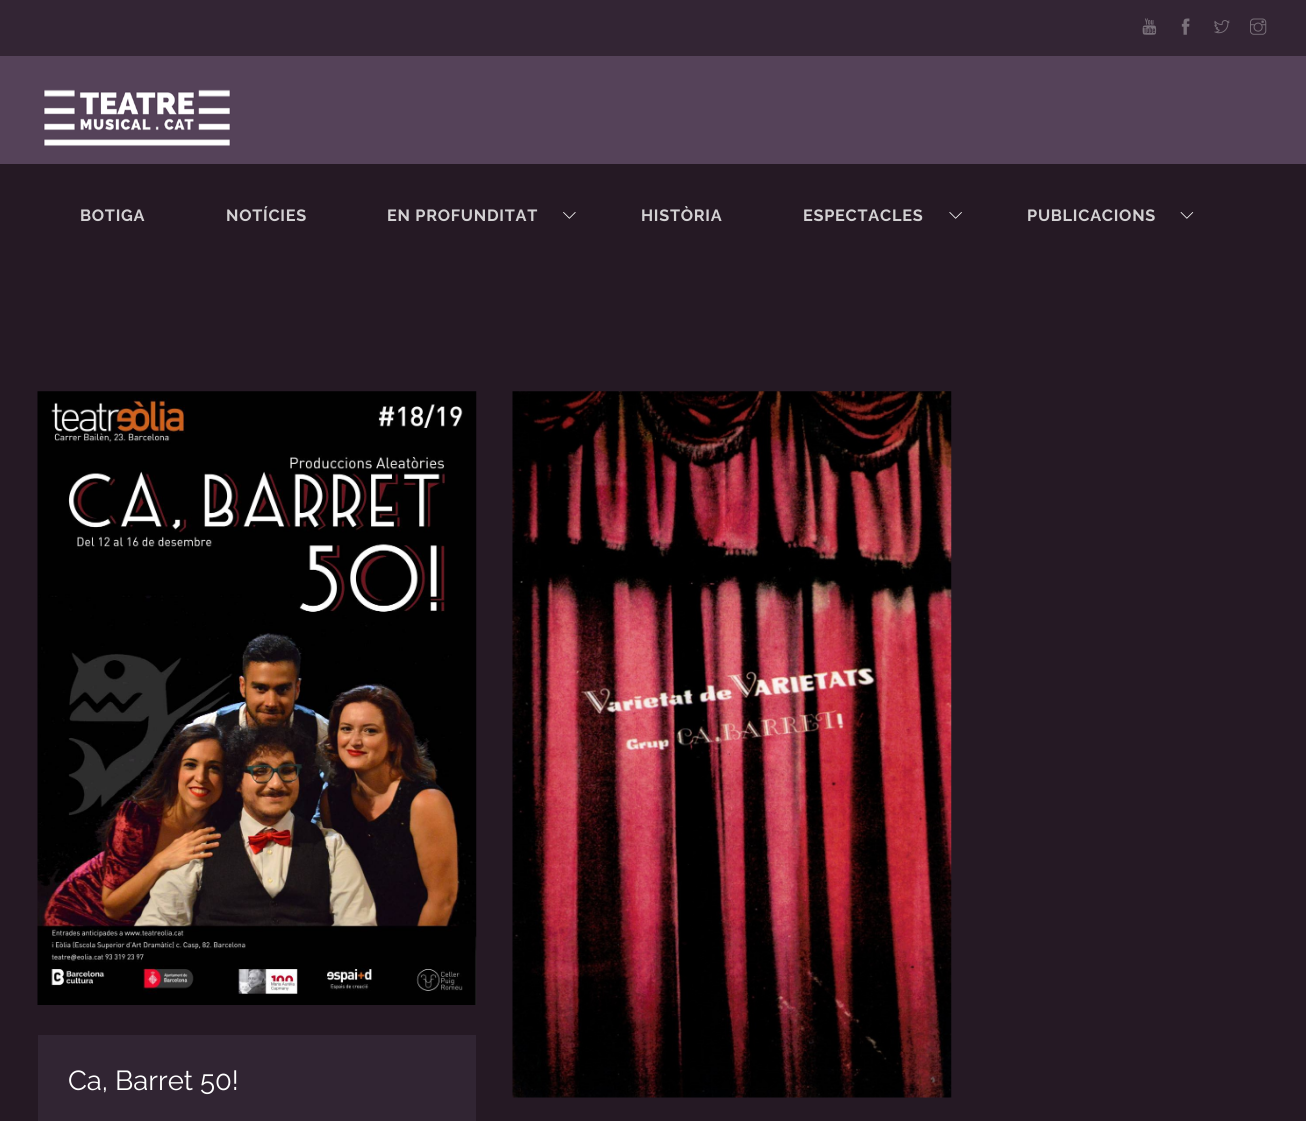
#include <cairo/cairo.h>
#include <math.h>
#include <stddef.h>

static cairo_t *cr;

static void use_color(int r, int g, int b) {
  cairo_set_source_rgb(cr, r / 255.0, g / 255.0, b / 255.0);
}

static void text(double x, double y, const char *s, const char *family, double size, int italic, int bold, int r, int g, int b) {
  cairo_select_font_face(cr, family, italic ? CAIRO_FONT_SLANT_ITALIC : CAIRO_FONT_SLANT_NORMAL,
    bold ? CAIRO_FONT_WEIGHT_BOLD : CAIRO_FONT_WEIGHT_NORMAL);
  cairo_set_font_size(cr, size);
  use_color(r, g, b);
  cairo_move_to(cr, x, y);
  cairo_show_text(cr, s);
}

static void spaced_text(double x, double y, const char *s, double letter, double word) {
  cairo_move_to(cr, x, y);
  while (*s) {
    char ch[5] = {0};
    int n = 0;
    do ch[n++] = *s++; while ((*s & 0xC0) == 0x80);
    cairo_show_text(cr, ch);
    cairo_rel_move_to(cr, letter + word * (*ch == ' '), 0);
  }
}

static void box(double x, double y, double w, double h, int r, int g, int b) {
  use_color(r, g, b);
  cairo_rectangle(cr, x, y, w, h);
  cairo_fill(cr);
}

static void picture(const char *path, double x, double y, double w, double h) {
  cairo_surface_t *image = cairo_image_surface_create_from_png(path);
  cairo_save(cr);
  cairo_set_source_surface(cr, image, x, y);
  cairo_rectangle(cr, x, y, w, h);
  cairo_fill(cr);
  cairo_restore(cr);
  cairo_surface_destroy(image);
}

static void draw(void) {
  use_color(37, 25, 36);
  cairo_paint(cr);
  box(0, 56, 1306, 108, 85, 66, 89);
  box(0, 0, 1306, 56, 51, 37, 52);
  picture("img_01.png", 1142, 18, 15, 17);
  picture("img_02.png", 1181, 18, 9, 17);
  picture("img_03.png", 1214, 20, 16, 14);
  picture("img_04.png", 1250, 18, 17, 17);
  picture("img_05.png", 43, 89, 188, 57);
  picture("img_06.png", 563, 212, 13, 7);
  picture("img_07.png", 949, 212, 13, 7);
  picture("img_08.png", 1180, 212, 14, 7);
  picture("img_09.png", 37, 391, 440, 614);
  box(38, 1035, 438, 86, 49, 37, 51);
  picture("img_10.png", 512, 391, 440, 707);
  cairo_select_font_face(cr, "Raleway", CAIRO_FONT_SLANT_NORMAL, CAIRO_FONT_WEIGHT_BOLD);
  cairo_set_font_size(cr, 16.25);
  use_color(211, 209, 211);
  spaced_text(80, 221, "BOTIGA", 0.75, 0);
  spaced_text(226, 221, "NOTÍCIES", 0.75, 0);
  spaced_text(387, 221, "EN PROFUNDITAT", 0.75, 0);
  spaced_text(641, 221, "HISTÒRIA", 0.75, 0);
  spaced_text(803, 221, "ESPECTACLES", 0.75, 0);
  spaced_text(1027, 221, "PUBLICACIONS", 0.75, 0);
  text(68, 1090, "Ca, Barret 50!", "Raleway", 27.5, 0, 0, 255, 255, 255);
}

int main(void) {
  cairo_surface_t *surface = cairo_image_surface_create(CAIRO_FORMAT_RGB24, 1306, 1121);
  cr = cairo_create(surface);
  cairo_font_options_t *options = cairo_font_options_create();
  cairo_font_options_set_hint_metrics(options, CAIRO_HINT_METRICS_OFF);
  cairo_font_options_set_hint_style(options, CAIRO_HINT_STYLE_NONE);
  cairo_set_font_options(cr, options);
  cairo_set_miter_limit(cr, 4);
  draw();
  cairo_surface_write_to_png(surface, "out.png");
  cairo_font_options_destroy(options);
  cairo_destroy(cr);
  cairo_surface_destroy(surface);
  return 0;
}
